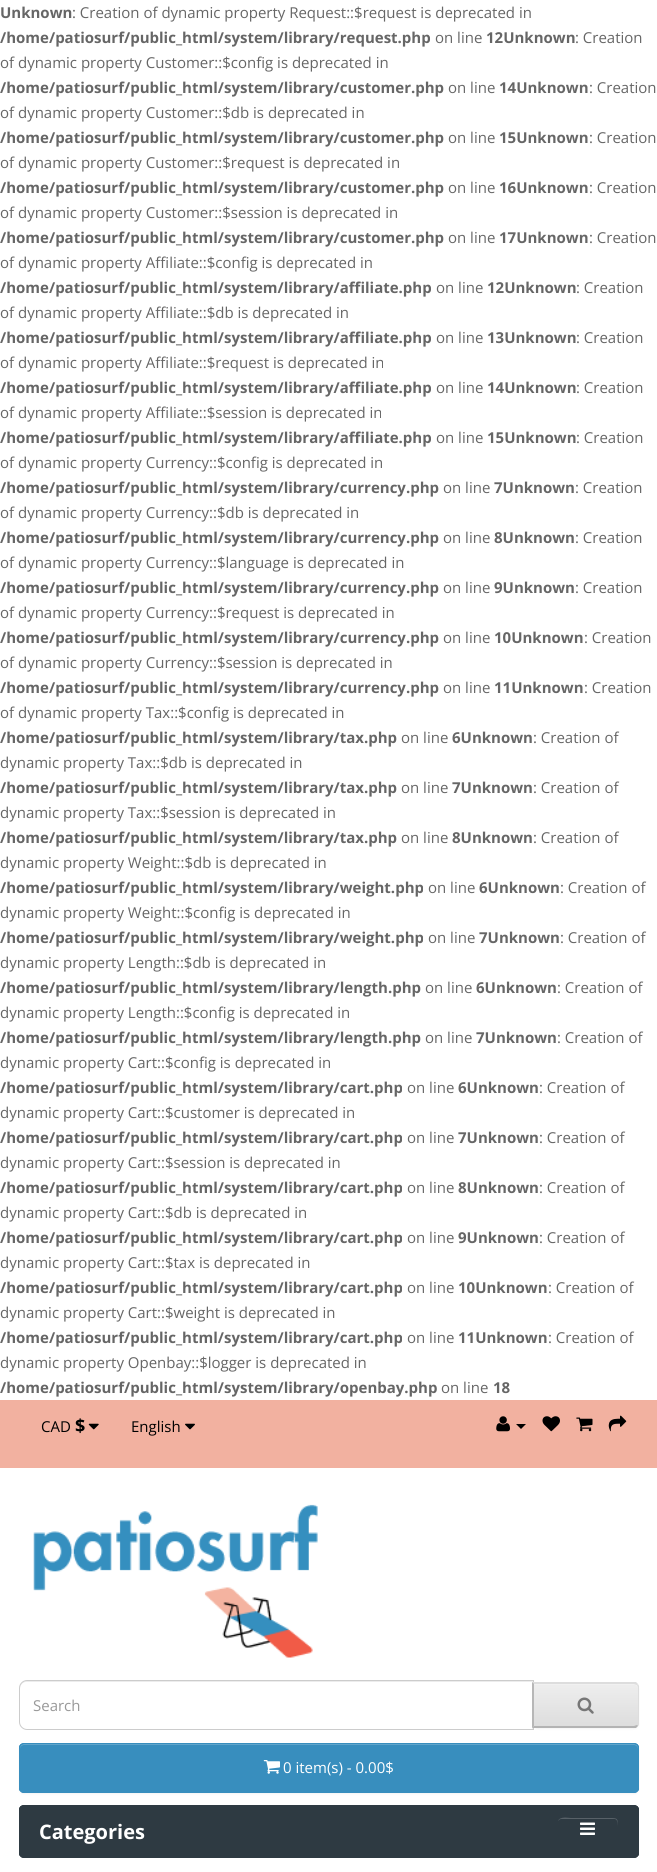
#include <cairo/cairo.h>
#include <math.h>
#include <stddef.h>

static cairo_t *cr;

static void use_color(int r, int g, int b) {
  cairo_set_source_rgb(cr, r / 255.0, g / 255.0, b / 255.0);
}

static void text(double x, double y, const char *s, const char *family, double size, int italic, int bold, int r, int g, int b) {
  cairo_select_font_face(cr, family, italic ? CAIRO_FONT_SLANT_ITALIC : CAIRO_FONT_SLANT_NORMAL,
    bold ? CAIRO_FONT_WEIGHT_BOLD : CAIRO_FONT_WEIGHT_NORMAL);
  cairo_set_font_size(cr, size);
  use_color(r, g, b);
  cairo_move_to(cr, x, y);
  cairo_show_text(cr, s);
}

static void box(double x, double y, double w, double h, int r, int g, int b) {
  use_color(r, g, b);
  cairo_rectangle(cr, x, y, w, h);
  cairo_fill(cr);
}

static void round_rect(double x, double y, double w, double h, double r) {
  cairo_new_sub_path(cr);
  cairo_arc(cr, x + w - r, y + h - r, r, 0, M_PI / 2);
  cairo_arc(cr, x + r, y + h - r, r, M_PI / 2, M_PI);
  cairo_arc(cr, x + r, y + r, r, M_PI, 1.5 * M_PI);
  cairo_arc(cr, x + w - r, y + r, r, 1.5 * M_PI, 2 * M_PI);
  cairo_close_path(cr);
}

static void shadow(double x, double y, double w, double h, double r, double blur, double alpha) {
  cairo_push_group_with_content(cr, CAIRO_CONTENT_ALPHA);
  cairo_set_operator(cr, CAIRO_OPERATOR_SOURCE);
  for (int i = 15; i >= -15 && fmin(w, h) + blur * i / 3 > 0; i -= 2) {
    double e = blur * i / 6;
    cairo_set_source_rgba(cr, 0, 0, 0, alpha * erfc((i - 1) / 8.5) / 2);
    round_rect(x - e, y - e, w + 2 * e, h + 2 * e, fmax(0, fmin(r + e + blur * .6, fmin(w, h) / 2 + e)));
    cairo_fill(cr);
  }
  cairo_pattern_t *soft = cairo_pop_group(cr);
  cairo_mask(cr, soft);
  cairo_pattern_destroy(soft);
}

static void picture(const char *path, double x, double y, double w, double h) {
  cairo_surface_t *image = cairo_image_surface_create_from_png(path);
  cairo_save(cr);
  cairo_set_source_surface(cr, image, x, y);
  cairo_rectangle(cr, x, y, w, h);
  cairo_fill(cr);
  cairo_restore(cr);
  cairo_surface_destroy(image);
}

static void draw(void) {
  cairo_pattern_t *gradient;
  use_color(255, 255, 255);
  cairo_paint(cr);
  box(0, 1400, 657, 68, 242, 177, 160);
  picture("img_01.png", 88, 1423, 11, 7);
  picture("img_02.png", 185, 1423, 10, 7);
  picture("img_03.png", 496, 1416, 14, 16);
  use_color(0, 0, 0);
  cairo_new_path(cr);
  cairo_move_to(cr, 516, 1424);
  cairo_line_to(cr, 526, 1424);
  cairo_line_to(cr, 521, 1429);
  cairo_close_path(cr);
  cairo_fill(cr);
  picture("img_04.png", 542, 1416, 18, 16);
  picture("img_05.png", 576, 1417, 17, 15);
  picture("img_06.png", 608, 1415, 19, 17);
  picture("img_07.png", 33, 1504, 285, 154);
  use_color(236, 236, 236);
  cairo_new_path(cr);
  cairo_move_to(cr, 26, 1682);
  cairo_line_to(cr, 532, 1682);
  cairo_line_to(cr, 532, 1729);
  cairo_line_to(cr, 533, 1729);
  cairo_line_to(cr, 533, 1681);
  cairo_line_to(cr, 26, 1681);
  cairo_curve_to(cr, 23, 1681, 20, 1684, 20, 1687);
  cairo_line_to(cr, 20, 1689);
  cairo_curve_to(cr, 20, 1685, 23, 1682, 26, 1682);
  cairo_close_path(cr);
  cairo_fill(cr);
  cairo_new_path(cr);
  cairo_move_to(cr, 27, 1680.5);
  cairo_line_to(cr, 533.5, 1680.5);
  cairo_line_to(cr, 533.5, 1729.5);
  cairo_line_to(cr, 27, 1729.5);
  cairo_curve_to(cr, 23, 1729.5, 19.5, 1726, 19.5, 1722);
  cairo_line_to(cr, 19.5, 1688);
  cairo_curve_to(cr, 19.5, 1684, 23, 1680.5, 27, 1680.5);
  cairo_close_path(cr);
  use_color(204, 204, 204);
  cairo_set_line_width(cr, 1);
  cairo_stroke(cr);
  use_color(0, 0, 0);
  shadow(533, 1684, 106, 45, 5, 1, 0.05);
  cairo_save(cr);
  cairo_new_path(cr);
  cairo_move_to(cr, 533, 1683);
  cairo_line_to(cr, 634, 1683);
  cairo_curve_to(cr, 637, 1683, 639, 1685, 639, 1688);
  cairo_line_to(cr, 639, 1723);
  cairo_curve_to(cr, 639, 1726, 637, 1728, 634, 1728);
  cairo_line_to(cr, 533, 1728);
  cairo_close_path(cr);
  cairo_clip(cr);
  gradient = cairo_pattern_create_linear(586, 1684, 586, 1726);
  cairo_pattern_add_color_stop_rgba(gradient, 0, 0.933, 0.933, 0.933, 1);
  cairo_pattern_add_color_stop_rgba(gradient, 1, 0.867, 0.867, 0.867, 1);
  cairo_set_source(cr, gradient);
  cairo_pattern_destroy(gradient);
  cairo_rectangle(cr, 534, 1684, 105, 42);
  cairo_fill(cr);
  cairo_restore(cr);
  use_color(241, 241, 241);
  cairo_new_path(cr);
  cairo_move_to(cr, 534, 1685);
  cairo_line_to(cr, 634, 1685);
  cairo_curve_to(cr, 636, 1685, 638, 1687, 638, 1689);
  cairo_line_to(cr, 638, 1688);
  cairo_curve_to(cr, 638, 1686, 636, 1684, 634, 1684);
  cairo_line_to(cr, 534, 1684);
  cairo_close_path(cr);
  cairo_fill(cr);
  use_color(221, 221, 221);
  cairo_new_path(cr);
  cairo_move_to(cr, 534, 1684);
  cairo_line_to(cr, 532, 1682);
  cairo_line_to(cr, 636, 1682);
  cairo_line_to(cr, 638, 1684);
  cairo_line_to(cr, 637, 1685);
  cairo_line_to(cr, 634, 1684);
  cairo_close_path(cr);
  cairo_fill(cr);
  cairo_new_path(cr);
  cairo_move_to(cr, 639, 1724);
  cairo_line_to(cr, 638, 1726);
  cairo_line_to(cr, 637, 1725);
  cairo_curve_to(cr, 637, 1725, 638, 1724, 638, 1722);
  cairo_line_to(cr, 638, 1688);
  cairo_curve_to(cr, 638, 1686, 637, 1685, 637, 1685);
  cairo_line_to(cr, 638, 1684);
  cairo_line_to(cr, 639, 1686);
  cairo_close_path(cr);
  cairo_fill(cr);
  use_color(179, 179, 179);
  cairo_new_path(cr);
  cairo_move_to(cr, 638, 1726);
  cairo_line_to(cr, 636, 1728);
  cairo_line_to(cr, 532, 1728);
  cairo_line_to(cr, 534, 1726);
  cairo_line_to(cr, 634, 1726);
  cairo_line_to(cr, 637, 1725);
  cairo_close_path(cr);
  cairo_fill(cr);
  use_color(183, 183, 183);
  cairo_new_path(cr);
  cairo_move_to(cr, 532, 1728);
  cairo_line_to(cr, 534, 1726);
  cairo_line_to(cr, 534, 1684);
  cairo_line_to(cr, 532, 1682);
  cairo_close_path(cr);
  cairo_fill(cr);
  picture("img_08.png", 577, 1697, 17, 17);
  use_color(0, 0, 0);
  shadow(19, 1744, 620, 50, 5, 1, 0.05);
  use_color(56, 142, 190);
  round_rect(19, 1743, 620, 50, 5);
  cairo_fill(cr);
  cairo_save(cr);
  round_rect(19, 1743, 620, 50, 5);
  cairo_clip(cr);
  box(19, 1744, 620, 47, 56, 142, 190);
  cairo_restore(cr);
  use_color(96, 165, 203);
  cairo_new_path(cr);
  cairo_move_to(cr, 24, 1745);
  cairo_line_to(cr, 634, 1745);
  cairo_curve_to(cr, 636, 1745, 638, 1747, 638, 1749);
  cairo_line_to(cr, 638, 1748);
  cairo_curve_to(cr, 638, 1746, 636, 1744, 634, 1744);
  cairo_line_to(cr, 24, 1744);
  cairo_curve_to(cr, 22, 1744, 20, 1746, 20, 1748);
  cairo_line_to(cr, 20, 1749);
  cairo_curve_to(cr, 20, 1747, 22, 1745, 24, 1745);
  cairo_close_path(cr);
  cairo_fill(cr);
  round_rect(19.5, 1743.5, 619, 49, 4.5);
  use_color(56, 142, 190);
  cairo_stroke(cr);
  picture("img_09.png", 263, 1760, 17, 14);
  use_color(46, 58, 66);
  round_rect(19, 1805, 620, 53, 5);
  cairo_fill(cr);
  cairo_save(cr);
  round_rect(19, 1805, 620, 53, 5);
  cairo_clip(cr);
  box(19, 1806, 620, 50, 46, 58, 66);
  cairo_restore(cr);
  round_rect(19.5, 1805.5, 619, 52, 4.5);
  cairo_stroke(cr);
  use_color(88, 97, 104);
  cairo_set_fill_rule(cr, CAIRO_FILL_RULE_EVEN_ODD);
  cairo_new_path(cr);
  cairo_move_to(cr, 561, 1819);
  cairo_line_to(cr, 615, 1819);
  cairo_curve_to(cr, 618, 1820, 618, 1825, 618, 1828);
  cairo_curve_to(cr, 618, 1817, 618, 1818, 605, 1818);
  cairo_line_to(cr, 571, 1818);
  cairo_curve_to(cr, 568, 1818, 560, 1816, 558, 1821);
  cairo_curve_to(cr, 559, 1820, 560, 1819, 561, 1819);
  cairo_close_path(cr);
  cairo_move_to(cr, 558, 1836);
  cairo_line_to(cr, 558, 1836);
  cairo_close_path(cr);
  cairo_fill(cr);
  picture("img_10.png", 580, 1822, 15, 13);
  text(0, 18, "Unknown", "Open Sans", 15, 0, 1, 102, 102, 102);
  text(72, 18, ": Creation of dynamic property Request::$request is deprecated in", "Open Sans", 15, 0, 0, 102, 102, 102);
  text(0, 43, "/home/patiosurf/public_html/system/library/request.php", "Open Sans", 15, 0, 1, 102, 102, 102);
  text(435, 43, "on line", "Open Sans", 15, 0, 0, 102, 102, 102);
  text(486, 43, "12Unknown", "Open Sans", 15, 0, 1, 102, 102, 102);
  text(575, 43, ": Creation", "Open Sans", 15, 0, 0, 102, 102, 102);
  text(0, 68, "of dynamic property Customer::$config is deprecated in", "Open Sans", 15, 0, 0, 102, 102, 102);
  text(0, 93, "/home/patiosurf/public_html/system/library/customer.php", "Open Sans", 15, 0, 1, 102, 102, 102);
  text(448, 93, "on line", "Open Sans", 15, 0, 0, 102, 102, 102);
  text(499, 93, "14Unknown", "Open Sans", 15, 0, 1, 102, 102, 102);
  text(589, 93, ": Creation", "Open Sans", 15, 0, 0, 102, 102, 102);
  text(0, 118, "of dynamic property Customer::$db is deprecated in", "Open Sans", 15, 0, 0, 102, 102, 102);
  text(0, 143, "/home/patiosurf/public_html/system/library/customer.php", "Open Sans", 15, 0, 1, 102, 102, 102);
  text(448, 143, "on line", "Open Sans", 15, 0, 0, 102, 102, 102);
  text(499, 143, "15Unknown", "Open Sans", 15, 0, 1, 102, 102, 102);
  text(589, 143, ": Creation", "Open Sans", 15, 0, 0, 102, 102, 102);
  text(0, 168, "of dynamic property Customer::$request is deprecated in", "Open Sans", 15, 0, 0, 102, 102, 102);
  text(0, 193, "/home/patiosurf/public_html/system/library/customer.php", "Open Sans", 15, 0, 1, 102, 102, 102);
  text(448, 193, "on line", "Open Sans", 15, 0, 0, 102, 102, 102);
  text(499, 193, "16Unknown", "Open Sans", 15, 0, 1, 102, 102, 102);
  text(589, 193, ": Creation", "Open Sans", 15, 0, 0, 102, 102, 102);
  text(0, 218, "of dynamic property Customer::$session is deprecated in", "Open Sans", 15, 0, 0, 102, 102, 102);
  text(0, 243, "/home/patiosurf/public_html/system/library/customer.php", "Open Sans", 15, 0, 1, 102, 102, 102);
  text(448, 243, "on line", "Open Sans", 15, 0, 0, 102, 102, 102);
  text(499, 243, "17Unknown", "Open Sans", 15, 0, 1, 102, 102, 102);
  text(589, 243, ": Creation", "Open Sans", 15, 0, 0, 102, 102, 102);
  text(0, 268, "of dynamic property Affiliate::$config is deprecated in", "Open Sans", 15, 0, 0, 102, 102, 102);
  text(0, 293, "/home/patiosurf/public_html/system/library/affiliate.php", "Open Sans", 15, 0, 1, 102, 102, 102);
  text(436, 293, "on line", "Open Sans", 15, 0, 0, 102, 102, 102);
  text(487, 293, "12Unknown", "Open Sans", 15, 0, 1, 102, 102, 102);
  text(576, 293, ": Creation", "Open Sans", 15, 0, 0, 102, 102, 102);
  text(0, 318, "of dynamic property Affiliate::$db is deprecated in", "Open Sans", 15, 0, 0, 102, 102, 102);
  text(0, 343, "/home/patiosurf/public_html/system/library/affiliate.php", "Open Sans", 15, 0, 1, 102, 102, 102);
  text(436, 343, "on line", "Open Sans", 15, 0, 0, 102, 102, 102);
  text(487, 343, "13Unknown", "Open Sans", 15, 0, 1, 102, 102, 102);
  text(576, 343, ": Creation", "Open Sans", 15, 0, 0, 102, 102, 102);
  text(0, 368, "of dynamic property Affiliate::$request is deprecated in", "Open Sans", 15, 0, 0, 102, 102, 102);
  text(0, 393, "/home/patiosurf/public_html/system/library/affiliate.php", "Open Sans", 15, 0, 1, 102, 102, 102);
  text(436, 393, "on line", "Open Sans", 15, 0, 0, 102, 102, 102);
  text(487, 393, "14Unknown", "Open Sans", 15, 0, 1, 102, 102, 102);
  text(576, 393, ": Creation", "Open Sans", 15, 0, 0, 102, 102, 102);
  text(0, 418, "of dynamic property Affiliate::$session is deprecated in", "Open Sans", 15, 0, 0, 102, 102, 102);
  text(0, 443, "/home/patiosurf/public_html/system/library/affiliate.php", "Open Sans", 15, 0, 1, 102, 102, 102);
  text(436, 443, "on line", "Open Sans", 15, 0, 0, 102, 102, 102);
  text(487, 443, "15Unknown", "Open Sans", 15, 0, 1, 102, 102, 102);
  text(576, 443, ": Creation", "Open Sans", 15, 0, 0, 102, 102, 102);
  text(0, 468, "of dynamic property Currency::$config is deprecated in", "Open Sans", 15, 0, 0, 102, 102, 102);
  text(0, 493, "/home/patiosurf/public_html/system/library/currency.php", "Open Sans", 15, 0, 1, 102, 102, 102);
  text(443, 493, "on line", "Open Sans", 15, 0, 0, 102, 102, 102);
  text(494, 493, "7Unknown", "Open Sans", 15, 0, 1, 102, 102, 102);
  text(575, 493, ": Creation", "Open Sans", 15, 0, 0, 102, 102, 102);
  text(0, 518, "of dynamic property Currency::$db is deprecated in", "Open Sans", 15, 0, 0, 102, 102, 102);
  text(0, 543, "/home/patiosurf/public_html/system/library/currency.php", "Open Sans", 15, 0, 1, 102, 102, 102);
  text(443, 543, "on line", "Open Sans", 15, 0, 0, 102, 102, 102);
  text(494, 543, "8Unknown", "Open Sans", 15, 0, 1, 102, 102, 102);
  text(575, 543, ": Creation", "Open Sans", 15, 0, 0, 102, 102, 102);
  text(0, 568, "of dynamic property Currency::$language is deprecated in", "Open Sans", 15, 0, 0, 102, 102, 102);
  text(0, 593, "/home/patiosurf/public_html/system/library/currency.php", "Open Sans", 15, 0, 1, 102, 102, 102);
  text(443, 593, "on line", "Open Sans", 15, 0, 0, 102, 102, 102);
  text(494, 593, "9Unknown", "Open Sans", 15, 0, 1, 102, 102, 102);
  text(575, 593, ": Creation", "Open Sans", 15, 0, 0, 102, 102, 102);
  text(0, 618, "of dynamic property Currency::$request is deprecated in", "Open Sans", 15, 0, 0, 102, 102, 102);
  text(0, 643, "/home/patiosurf/public_html/system/library/currency.php", "Open Sans", 15, 0, 1, 102, 102, 102);
  text(443, 643, "on line", "Open Sans", 15, 0, 0, 102, 102, 102);
  text(494, 643, "10Unknown", "Open Sans", 15, 0, 1, 102, 102, 102);
  text(584, 643, ": Creation", "Open Sans", 15, 0, 0, 102, 102, 102);
  text(0, 668, "of dynamic property Currency::$session is deprecated in", "Open Sans", 15, 0, 0, 102, 102, 102);
  text(0, 693, "/home/patiosurf/public_html/system/library/currency.php", "Open Sans", 15, 0, 1, 102, 102, 102);
  text(443, 693, "on line", "Open Sans", 15, 0, 0, 102, 102, 102);
  text(494, 693, "11Unknown", "Open Sans", 15, 0, 1, 102, 102, 102);
  text(584, 693, ": Creation", "Open Sans", 15, 0, 0, 102, 102, 102);
  text(0, 718, "of dynamic property Tax::$config is deprecated in", "Open Sans", 15, 0, 0, 102, 102, 102);
  text(0, 743, "/home/patiosurf/public_html/system/library/tax.php", "Open Sans", 15, 0, 1, 102, 102, 102);
  text(401, 743, "on line", "Open Sans", 15, 0, 0, 102, 102, 102);
  text(452, 743, "6Unknown", "Open Sans", 15, 0, 1, 102, 102, 102);
  text(533, 743, ": Creation of", "Open Sans", 15, 0, 0, 102, 102, 102);
  text(0, 768, "dynamic property Tax::$db is deprecated in", "Open Sans", 15, 0, 0, 102, 102, 102);
  text(0, 793, "/home/patiosurf/public_html/system/library/tax.php", "Open Sans", 15, 0, 1, 102, 102, 102);
  text(401, 793, "on line", "Open Sans", 15, 0, 0, 102, 102, 102);
  text(452, 793, "7Unknown", "Open Sans", 15, 0, 1, 102, 102, 102);
  text(533, 793, ": Creation of", "Open Sans", 15, 0, 0, 102, 102, 102);
  text(0, 818, "dynamic property Tax::$session is deprecated in", "Open Sans", 15, 0, 0, 102, 102, 102);
  text(0, 843, "/home/patiosurf/public_html/system/library/tax.php", "Open Sans", 15, 0, 1, 102, 102, 102);
  text(401, 843, "on line", "Open Sans", 15, 0, 0, 102, 102, 102);
  text(452, 843, "8Unknown", "Open Sans", 15, 0, 1, 102, 102, 102);
  text(533, 843, ": Creation of", "Open Sans", 15, 0, 0, 102, 102, 102);
  text(0, 868, "dynamic property Weight::$db is deprecated in", "Open Sans", 15, 0, 0, 102, 102, 102);
  text(0, 893, "/home/patiosurf/public_html/system/library/weight.php", "Open Sans", 15, 0, 1, 102, 102, 102);
  text(428, 893, "on line", "Open Sans", 15, 0, 0, 102, 102, 102);
  text(479, 893, "6Unknown", "Open Sans", 15, 0, 1, 102, 102, 102);
  text(560, 893, ": Creation of", "Open Sans", 15, 0, 0, 102, 102, 102);
  text(0, 918, "dynamic property Weight::$config is deprecated in", "Open Sans", 15, 0, 0, 102, 102, 102);
  text(0, 943, "/home/patiosurf/public_html/system/library/weight.php", "Open Sans", 15, 0, 1, 102, 102, 102);
  text(428, 943, "on line", "Open Sans", 15, 0, 0, 102, 102, 102);
  text(479, 943, "7Unknown", "Open Sans", 15, 0, 1, 102, 102, 102);
  text(560, 943, ": Creation of", "Open Sans", 15, 0, 0, 102, 102, 102);
  text(0, 968, "dynamic property Length::$db is deprecated in", "Open Sans", 15, 0, 0, 102, 102, 102);
  text(0, 993, "/home/patiosurf/public_html/system/library/length.php", "Open Sans", 15, 0, 1, 102, 102, 102);
  text(425, 993, "on line", "Open Sans", 15, 0, 0, 102, 102, 102);
  text(476, 993, "6Unknown", "Open Sans", 15, 0, 1, 102, 102, 102);
  text(557, 993, ": Creation of", "Open Sans", 15, 0, 0, 102, 102, 102);
  text(0, 1018, "dynamic property Length::$config is deprecated in", "Open Sans", 15, 0, 0, 102, 102, 102);
  text(0, 1043, "/home/patiosurf/public_html/system/library/length.php", "Open Sans", 15, 0, 1, 102, 102, 102);
  text(425, 1043, "on line", "Open Sans", 15, 0, 0, 102, 102, 102);
  text(476, 1043, "7Unknown", "Open Sans", 15, 0, 1, 102, 102, 102);
  text(557, 1043, ": Creation of", "Open Sans", 15, 0, 0, 102, 102, 102);
  text(0, 1068, "dynamic property Cart::$config is deprecated in", "Open Sans", 15, 0, 0, 102, 102, 102);
  text(0, 1093, "/home/patiosurf/public_html/system/library/cart.php", "Open Sans", 15, 0, 1, 102, 102, 102);
  text(407, 1093, "on line", "Open Sans", 15, 0, 0, 102, 102, 102);
  text(458, 1093, "6Unknown", "Open Sans", 15, 0, 1, 102, 102, 102);
  text(539, 1093, ": Creation of", "Open Sans", 15, 0, 0, 102, 102, 102);
  text(0, 1118, "dynamic property Cart::$customer is deprecated in", "Open Sans", 15, 0, 0, 102, 102, 102);
  text(0, 1143, "/home/patiosurf/public_html/system/library/cart.php", "Open Sans", 15, 0, 1, 102, 102, 102);
  text(407, 1143, "on line", "Open Sans", 15, 0, 0, 102, 102, 102);
  text(458, 1143, "7Unknown", "Open Sans", 15, 0, 1, 102, 102, 102);
  text(539, 1143, ": Creation of", "Open Sans", 15, 0, 0, 102, 102, 102);
  text(0, 1168, "dynamic property Cart::$session is deprecated in", "Open Sans", 15, 0, 0, 102, 102, 102);
  text(0, 1193, "/home/patiosurf/public_html/system/library/cart.php", "Open Sans", 15, 0, 1, 102, 102, 102);
  text(407, 1193, "on line", "Open Sans", 15, 0, 0, 102, 102, 102);
  text(458, 1193, "8Unknown", "Open Sans", 15, 0, 1, 102, 102, 102);
  text(539, 1193, ": Creation of", "Open Sans", 15, 0, 0, 102, 102, 102);
  text(0, 1218, "dynamic property Cart::$db is deprecated in", "Open Sans", 15, 0, 0, 102, 102, 102);
  text(0, 1243, "/home/patiosurf/public_html/system/library/cart.php", "Open Sans", 15, 0, 1, 102, 102, 102);
  text(407, 1243, "on line", "Open Sans", 15, 0, 0, 102, 102, 102);
  text(458, 1243, "9Unknown", "Open Sans", 15, 0, 1, 102, 102, 102);
  text(539, 1243, ": Creation of", "Open Sans", 15, 0, 0, 102, 102, 102);
  text(0, 1268, "dynamic property Cart::$tax is deprecated in", "Open Sans", 15, 0, 0, 102, 102, 102);
  text(0, 1293, "/home/patiosurf/public_html/system/library/cart.php", "Open Sans", 15, 0, 1, 102, 102, 102);
  text(407, 1293, "on line", "Open Sans", 15, 0, 0, 102, 102, 102);
  text(458, 1293, "10Unknown", "Open Sans", 15, 0, 1, 102, 102, 102);
  text(548, 1293, ": Creation of", "Open Sans", 15, 0, 0, 102, 102, 102);
  text(0, 1318, "dynamic property Cart::$weight is deprecated in", "Open Sans", 15, 0, 0, 102, 102, 102);
  text(0, 1343, "/home/patiosurf/public_html/system/library/cart.php", "Open Sans", 15, 0, 1, 102, 102, 102);
  text(407, 1343, "on line", "Open Sans", 15, 0, 0, 102, 102, 102);
  text(458, 1343, "11Unknown", "Open Sans", 15, 0, 1, 102, 102, 102);
  text(548, 1343, ": Creation of", "Open Sans", 15, 0, 0, 102, 102, 102);
  text(0, 1368, "dynamic property Openbay::$logger is deprecated in", "Open Sans", 15, 0, 0, 102, 102, 102);
  text(0, 1393, "/home/patiosurf/public_html/system/library/openbay.php", "Open Sans", 15, 0, 1, 102, 102, 102);
  text(441, 1393, "on line", "Open Sans", 15, 0, 0, 102, 102, 102);
  text(493, 1393, "18", "Open Sans", 15, 0, 1, 102, 102, 102);
  text(41, 1432, "CAD", "Open Sans", 15, 0, 0, 0, 0, 0);
  text(75, 1432, "$", "Open Sans", 18, 0, 1, 0, 0, 0);
  text(131, 1432, "English", "Open Sans", 15, 0, 0, 0, 0, 0);
  text(33, 1711, "Search", "Open Sans", 15, 0, 0, 153, 153, 153);
  text(283, 1773, "0 item(s) - 0.00$", "Open Sans", 15, 0, 0, 255, 255, 255);
  text(39, 1839, "Categories", "Open Sans", 20, 0, 1, 255, 255, 255);
}

int main(void) {
  cairo_surface_t *surface = cairo_image_surface_create(CAIRO_FORMAT_RGB24, 657, 1872);
  cr = cairo_create(surface);
  cairo_font_options_t *options = cairo_font_options_create();
  cairo_font_options_set_hint_metrics(options, CAIRO_HINT_METRICS_OFF);
  cairo_font_options_set_hint_style(options, CAIRO_HINT_STYLE_NONE);
  cairo_set_font_options(cr, options);
  cairo_set_miter_limit(cr, 4);
  draw();
  cairo_surface_write_to_png(surface, "out.png");
  cairo_font_options_destroy(options);
  cairo_destroy(cr);
  cairo_surface_destroy(surface);
  return 0;
}
